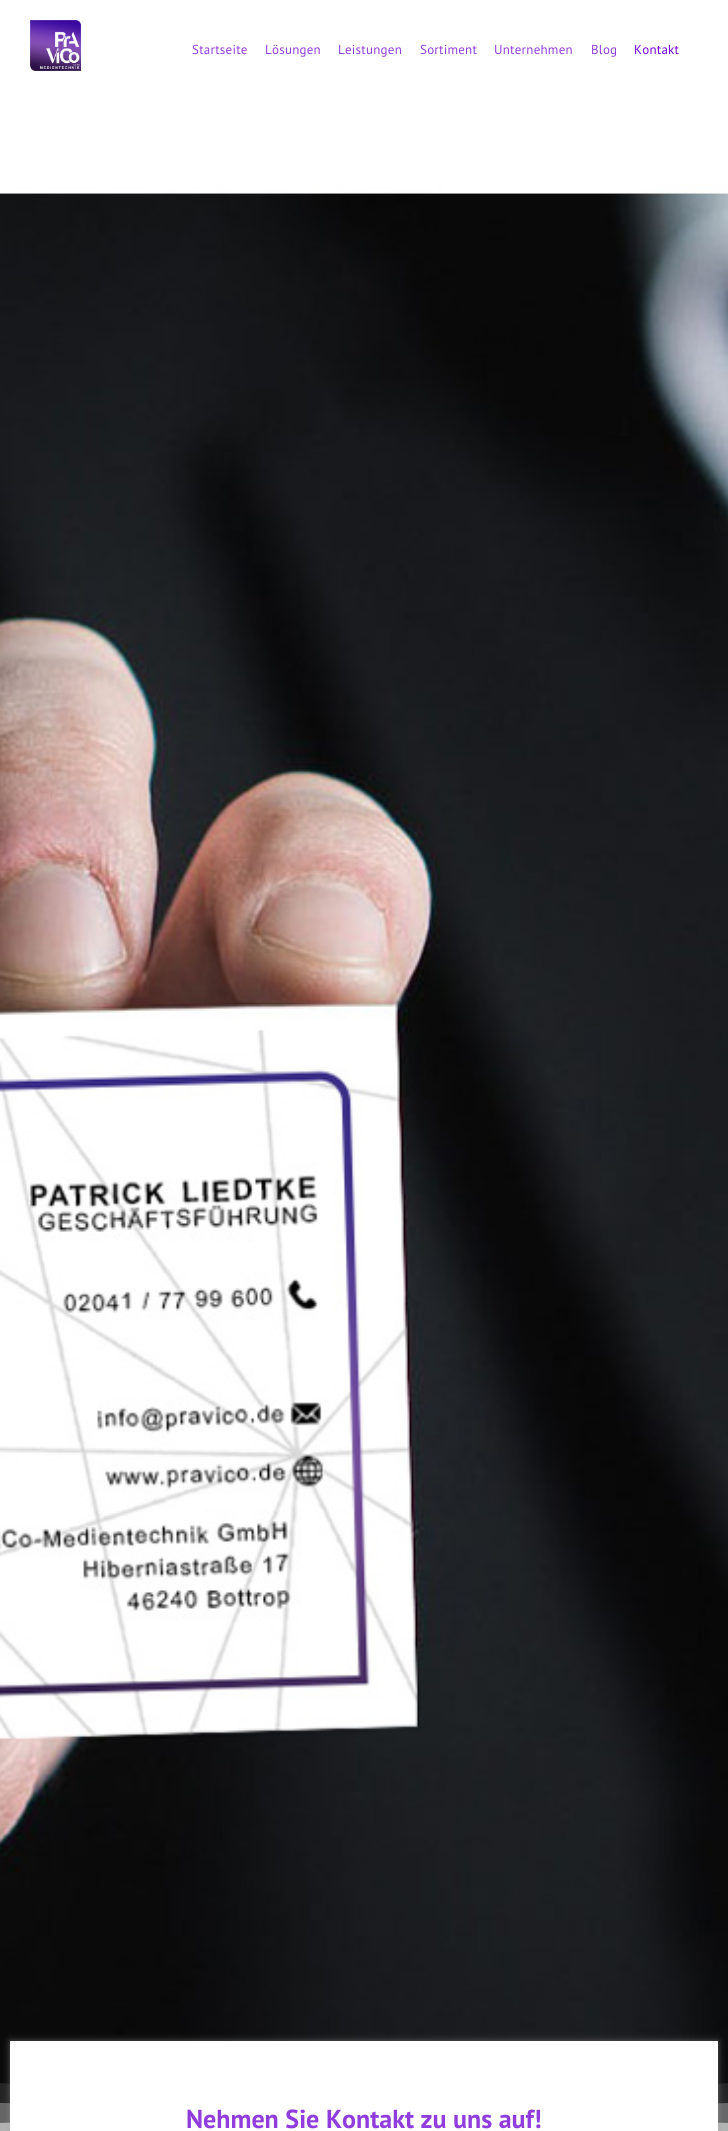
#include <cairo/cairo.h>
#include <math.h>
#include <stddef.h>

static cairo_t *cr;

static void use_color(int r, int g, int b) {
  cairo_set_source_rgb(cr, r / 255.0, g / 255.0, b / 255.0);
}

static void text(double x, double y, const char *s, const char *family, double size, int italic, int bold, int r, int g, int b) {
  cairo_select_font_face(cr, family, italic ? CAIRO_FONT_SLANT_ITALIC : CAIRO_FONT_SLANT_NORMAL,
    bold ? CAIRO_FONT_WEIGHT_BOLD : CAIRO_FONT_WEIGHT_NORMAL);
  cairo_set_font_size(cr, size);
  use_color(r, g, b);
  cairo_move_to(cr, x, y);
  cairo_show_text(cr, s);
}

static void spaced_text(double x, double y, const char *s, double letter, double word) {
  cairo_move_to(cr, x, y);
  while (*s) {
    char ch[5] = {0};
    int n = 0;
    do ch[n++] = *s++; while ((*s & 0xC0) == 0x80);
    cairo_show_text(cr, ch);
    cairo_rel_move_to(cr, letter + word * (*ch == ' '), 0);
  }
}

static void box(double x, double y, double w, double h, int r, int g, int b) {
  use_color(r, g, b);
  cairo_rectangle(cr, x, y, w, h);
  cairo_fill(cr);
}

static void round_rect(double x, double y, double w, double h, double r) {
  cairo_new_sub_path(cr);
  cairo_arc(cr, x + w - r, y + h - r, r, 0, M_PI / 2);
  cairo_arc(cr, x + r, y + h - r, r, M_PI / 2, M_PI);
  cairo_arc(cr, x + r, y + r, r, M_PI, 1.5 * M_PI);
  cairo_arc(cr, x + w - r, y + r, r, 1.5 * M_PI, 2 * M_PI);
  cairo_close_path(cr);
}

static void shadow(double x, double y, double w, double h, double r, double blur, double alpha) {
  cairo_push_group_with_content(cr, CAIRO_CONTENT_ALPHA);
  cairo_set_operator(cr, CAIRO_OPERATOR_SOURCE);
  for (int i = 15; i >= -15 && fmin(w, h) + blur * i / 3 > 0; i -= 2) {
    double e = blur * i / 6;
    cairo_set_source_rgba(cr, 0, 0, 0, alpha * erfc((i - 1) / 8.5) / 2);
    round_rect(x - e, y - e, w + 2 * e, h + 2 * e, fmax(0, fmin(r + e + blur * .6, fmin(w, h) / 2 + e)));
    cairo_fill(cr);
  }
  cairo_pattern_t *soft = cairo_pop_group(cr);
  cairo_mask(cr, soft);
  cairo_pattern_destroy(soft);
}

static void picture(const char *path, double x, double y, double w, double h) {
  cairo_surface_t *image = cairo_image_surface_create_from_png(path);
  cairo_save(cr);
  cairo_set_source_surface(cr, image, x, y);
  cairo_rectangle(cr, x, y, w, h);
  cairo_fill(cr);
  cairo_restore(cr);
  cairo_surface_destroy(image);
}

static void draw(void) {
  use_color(255, 255, 255);
  cairo_paint(cr);
  picture("img_01.png", 30, 20, 51, 51);
  picture("img_02.png", 0, 184, 728, 1947);
  picture("img_03.png", 0, 2083, 728, 48);
  use_color(168, 168, 168);
  shadow(10, 2041, 708, 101, 0, 3.5, 0.5);
  box(10, 2041, 708, 90, 255, 255, 255);
  cairo_select_font_face(cr, "PT Sans", CAIRO_FONT_SLANT_NORMAL, CAIRO_FONT_WEIGHT_NORMAL);
  cairo_set_font_size(cr, 13);
  use_color(145, 61, 221);
  spaced_text(192, 54, "Startseite", 0.25, 0);
  spaced_text(265, 54, "Lösungen", 0.25, 0);
  spaced_text(338, 54, "Leistungen", 0.25, 0);
  spaced_text(420, 54, "Sortiment", 0.25, 0);
  spaced_text(494, 54, "Unternehmen", 0.25, 0);
  spaced_text(591, 54, "Blog", 0.25, 0);
  use_color(118, 0, 221);
  spaced_text(634, 54, "Kontakt", 0.25, 0);
  text(186, 2128, "Nehmen Sie Kontakt zu uns auf!", "PT Sans", 26, 0, 1, 145, 61, 221);
}

int main(void) {
  cairo_surface_t *surface = cairo_image_surface_create(CAIRO_FORMAT_RGB24, 728, 2131);
  cr = cairo_create(surface);
  cairo_font_options_t *options = cairo_font_options_create();
  cairo_font_options_set_hint_metrics(options, CAIRO_HINT_METRICS_OFF);
  cairo_font_options_set_hint_style(options, CAIRO_HINT_STYLE_NONE);
  cairo_set_font_options(cr, options);
  cairo_set_miter_limit(cr, 4);
  draw();
  cairo_surface_write_to_png(surface, "out.png");
  cairo_font_options_destroy(options);
  cairo_destroy(cr);
  cairo_surface_destroy(surface);
  return 0;
}
